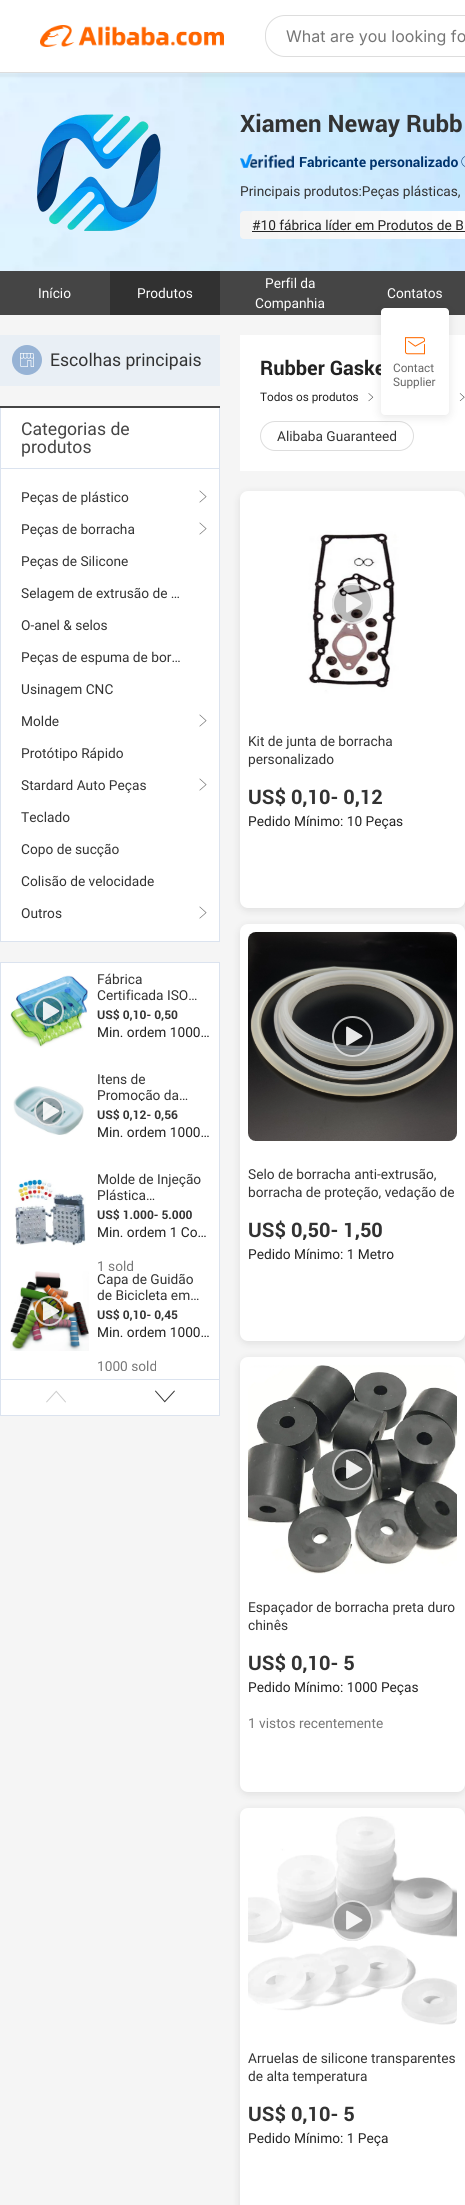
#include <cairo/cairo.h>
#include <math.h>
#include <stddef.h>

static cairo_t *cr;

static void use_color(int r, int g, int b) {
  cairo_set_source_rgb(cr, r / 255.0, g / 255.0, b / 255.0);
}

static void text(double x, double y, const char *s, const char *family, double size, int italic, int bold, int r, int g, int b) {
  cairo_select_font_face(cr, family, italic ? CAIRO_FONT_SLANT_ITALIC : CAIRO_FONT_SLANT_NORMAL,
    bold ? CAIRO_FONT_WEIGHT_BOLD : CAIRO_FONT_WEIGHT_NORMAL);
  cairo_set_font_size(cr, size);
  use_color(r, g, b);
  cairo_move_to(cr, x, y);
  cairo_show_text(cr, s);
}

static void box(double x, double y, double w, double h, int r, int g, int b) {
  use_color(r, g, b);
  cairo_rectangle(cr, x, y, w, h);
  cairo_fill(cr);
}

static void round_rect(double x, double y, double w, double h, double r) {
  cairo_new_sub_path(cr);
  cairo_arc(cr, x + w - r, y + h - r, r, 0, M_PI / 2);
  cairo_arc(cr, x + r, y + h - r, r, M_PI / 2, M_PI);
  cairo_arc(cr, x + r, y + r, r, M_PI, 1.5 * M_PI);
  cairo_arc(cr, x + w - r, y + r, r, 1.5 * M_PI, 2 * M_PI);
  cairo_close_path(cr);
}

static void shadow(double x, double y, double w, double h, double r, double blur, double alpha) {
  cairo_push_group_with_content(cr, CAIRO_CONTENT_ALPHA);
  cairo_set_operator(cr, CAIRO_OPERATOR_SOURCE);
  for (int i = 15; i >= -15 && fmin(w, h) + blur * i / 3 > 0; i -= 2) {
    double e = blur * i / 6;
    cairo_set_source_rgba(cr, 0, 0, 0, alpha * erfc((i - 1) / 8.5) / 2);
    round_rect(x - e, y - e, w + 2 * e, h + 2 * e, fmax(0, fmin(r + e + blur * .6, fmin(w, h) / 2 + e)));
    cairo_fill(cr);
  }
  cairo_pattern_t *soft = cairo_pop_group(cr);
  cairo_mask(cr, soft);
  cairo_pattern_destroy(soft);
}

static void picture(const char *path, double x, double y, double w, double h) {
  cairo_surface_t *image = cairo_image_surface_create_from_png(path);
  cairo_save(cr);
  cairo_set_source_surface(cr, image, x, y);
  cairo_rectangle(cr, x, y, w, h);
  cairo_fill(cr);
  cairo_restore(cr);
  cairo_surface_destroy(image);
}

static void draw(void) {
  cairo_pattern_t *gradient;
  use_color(255, 255, 255);
  cairo_paint(cr);
  picture("img_02.png", 0, 73, 465, 198);
  use_color(0, 0, 0);
  shadow(-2, 73, 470, 4, 0, 1, 0.05);
  box(0, 72, 465, 1, 221, 221, 221);
  picture("img_01.png", 40, 25, 184, 22);
  round_rect(265, 15, 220, 42, 20);
  cairo_fill(cr);
  use_color(255, 255, 255);
  round_rect(266, 16, 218, 40, 19);
  cairo_fill(cr);
  picture("img_03.png", 37, 114, 124, 117);
  picture("img_04.png", 240, 154, 54, 14);
  picture("img_05.png", 461, 156, 4, 11);
  gradient = cairo_pattern_create_linear(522, 225, 240, 225);
  cairo_pattern_add_color_stop_rgba(gradient, 0, 1, 1, 1, 1);
  cairo_pattern_add_color_stop_rgba(gradient, 1, 0.957, 0.957, 0.957, 1);
  cairo_set_source(cr, gradient);
  cairo_pattern_destroy(gradient);
  round_rect(240, 211, 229, 28, 4);
  cairo_fill(cr);
  box(252, 231, 213, 1, 34, 34, 34);
  box(0, 271, 465, 44, 69, 69, 69);
  box(110, 271, 110, 44, 49, 49, 49);
  box(0, 315, 465, 1890, 245, 245, 245);
  box(0, 335, 220, 51, 233, 239, 245);
  use_color(151, 179, 213);
  cairo_arc(cr, 27, 360, 15, 0, 2 * M_PI);
  cairo_fill(cr);
  picture("img_06.png", 20, 353, 14, 14);
  box(1, 408, 218, 533, 255, 255, 255);
  box(0, 406, 220, 2, 69, 69, 69);
  box(219, 408, 1, 534, 219, 227, 239);
  box(0, 941, 220, 1, 219, 227, 239);
  box(0, 408, 1, 534, 219, 227, 239);
  box(1, 468, 218, 1, 219, 227, 239);
  picture("img_07.png", 199, 490, 8, 13);
  picture("img_07.png", 199, 522, 8, 13);
  picture("img_07.png", 199, 714, 8, 13);
  picture("img_07.png", 199, 778, 8, 13);
  picture("img_07.png", 199, 906, 8, 13);
  use_color(255, 255, 255);
  cairo_rectangle(cr, 0.5, 962.5, 219, 453);
  cairo_fill_preserve(cr);
  use_color(219, 227, 239);
  cairo_set_line_width(cr, 1);
  cairo_stroke(cr);
  picture("img_08.png", 10, 975, 78, 73);
  cairo_set_source_rgba(cr, 0, 0, 0, 0.27);
  cairo_arc(cr, 49, 1011, 15, 0, 2 * M_PI);
  cairo_fill(cr);
  cairo_arc(cr, 49, 1011, 14, 0, 2 * M_PI);
  cairo_set_source_rgba(cr, 1, 1, 1, 0.72);
  cairo_set_line_width(cr, 2);
  cairo_stroke(cr);
  picture("img_09.png", 42, 1001, 18, 20);
  picture("img_10.png", 13, 1086, 71, 49);
  cairo_set_source_rgba(cr, 0, 0, 0, 0.27);
  cairo_arc(cr, 49, 1111, 15, 0, 2 * M_PI);
  cairo_fill(cr);
  cairo_arc(cr, 49, 1111, 14, 0, 2 * M_PI);
  cairo_set_source_rgba(cr, 1, 1, 1, 0.72);
  cairo_stroke(cr);
  picture("img_11.png", 42, 1101, 18, 20);
  picture("img_12.png", 15, 1179, 71, 67);
  picture("img_13.png", 10, 1271, 79, 80);
  cairo_set_source_rgba(cr, 0, 0, 0, 0.27);
  cairo_arc(cr, 49, 1311, 15, 0, 2 * M_PI);
  cairo_fill(cr);
  cairo_arc(cr, 49, 1311, 14, 0, 2 * M_PI);
  cairo_set_source_rgba(cr, 1, 1, 1, 0.72);
  cairo_stroke(cr);
  picture("img_14.png", 42, 1301, 18, 20);
  box(1, 1379, 218, 1, 219, 227, 239);
  picture("img_15.png", 46, 1390, 20, 13);
  picture("img_16.png", 155, 1390, 20, 13);
  box(240, 335, 225, 136, 255, 255, 255);
  picture("img_17.png", 368, 393, 6, 9);
  picture("img_18.png", 459, 393, 6, 8);
  round_rect(260.5, 421.5, 153, 29, 14.5);
  use_color(221, 221, 221);
  cairo_set_line_width(cr, 1);
  cairo_stroke(cr);
  use_color(0, 0, 0);
  shadow(240, 493, 225, 417, 8, 4, 0.1);
  use_color(255, 255, 255);
  round_rect(240, 491, 225, 417, 8);
  cairo_fill(cr);
  picture("img_19.png", 248, 499, 209, 209);
  cairo_set_source_rgba(cr, 0, 0, 0, 0.27);
  cairo_arc(cr, 352.5, 603.5, 20.5, 0, 2 * M_PI);
  cairo_fill(cr);
  cairo_arc(cr, 352.5, 603.5, 19.5, 0, 2 * M_PI);
  cairo_set_source_rgba(cr, 1, 1, 1, 0.72);
  cairo_set_line_width(cr, 2);
  cairo_stroke(cr);
  picture("img_20.png", 346, 593, 17, 20);
  use_color(0, 0, 0);
  shadow(240, 926, 225, 417, 8, 4, 0.1);
  use_color(255, 255, 255);
  round_rect(240, 924, 225, 417, 8);
  cairo_fill(cr);
  picture("img_21.png", 248, 932, 209, 209);
  cairo_set_source_rgba(cr, 0, 0, 0, 0.27);
  cairo_arc(cr, 352.5, 1036.5, 20.5, 0, 2 * M_PI);
  cairo_fill(cr);
  cairo_arc(cr, 352.5, 1036.5, 19.5, 0, 2 * M_PI);
  cairo_set_source_rgba(cr, 1, 1, 1, 0.72);
  cairo_stroke(cr);
  picture("img_22.png", 346, 1026, 17, 20);
  use_color(0, 0, 0);
  shadow(240, 1359, 225, 435, 8, 4, 0.1);
  use_color(255, 255, 255);
  round_rect(240, 1357, 225, 435, 8);
  cairo_fill(cr);
  picture("img_23.png", 248, 1365, 209, 209);
  cairo_set_source_rgba(cr, 0, 0, 0, 0.27);
  cairo_arc(cr, 352.5, 1469.5, 20.5, 0, 2 * M_PI);
  cairo_fill(cr);
  cairo_arc(cr, 352.5, 1469.5, 19.5, 0, 2 * M_PI);
  cairo_set_source_rgba(cr, 1, 1, 1, 0.72);
  cairo_stroke(cr);
  picture("img_24.png", 346, 1459, 17, 20);
  use_color(0, 0, 0);
  shadow(240, 1810, 225, 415, 8, 4, 0.1);
  use_color(255, 255, 255);
  round_rect(240, 1808, 225, 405, 8);
  cairo_fill(cr);
  picture("img_25.png", 248, 1816, 209, 209);
  cairo_set_source_rgba(cr, 0, 0, 0, 0.27);
  cairo_arc(cr, 352.5, 1920.5, 20.5, 0, 2 * M_PI);
  cairo_fill(cr);
  cairo_arc(cr, 352.5, 1920.5, 19.5, 0, 2 * M_PI);
  cairo_set_source_rgba(cr, 1, 1, 1, 0.72);
  cairo_stroke(cr);
  picture("img_26.png", 346, 1910, 17, 20);
  use_color(0, 0, 0);
  shadow(381, 310, 68, 107, 4, 5, 0.1);
  text(286, 42, "What are you looking fo", "Inter", 16, 0, 0, 118, 118, 118);
  text(240, 132, "Xiamen Neway Rubb", "Roboto", 24, 0, 1, 51, 51, 51);
  text(299, 167, "Fabricante personalizado", "Roboto", 14, 0, 1, 0, 52, 110);
  text(240, 196, "Principais produtos:Peças plásticas,", "Roboto", 14, 0, 0, 51, 51, 51);
  text(252, 230, "#10 fábrica líder em Produtos de B", "Roboto", 14, 0, 0, 34, 34, 34);
  text(38, 298, "Início", "Roboto", 14, 0, 0, 255, 255, 255);
  text(137, 298, "Produtos", "Roboto", 14, 0, 0, 255, 255, 255);
  text(265, 288, "Perfil da", "Roboto", 14, 0, 0, 255, 255, 255);
  text(255, 308, "Companhia", "Roboto", 14, 0, 0, 255, 255, 255);
  text(387, 298, "Contatos", "Roboto", 14, 0, 0, 255, 255, 255);
  text(50, 366, "Escolhas principais", "Roboto", 18, 0, 0, 51, 51, 51);
  text(21, 435, "Categorias de", "Roboto", 18, 0, 0, 69, 69, 69);
  text(21, 453, "produtos", "Roboto", 18, 0, 0, 69, 69, 69);
  text(21, 502, "Peças de plástico", "Roboto", 14, 0, 0, 51, 51, 51);
  text(21, 534, "Peças de borracha", "Roboto", 14, 0, 0, 51, 51, 51);
  text(21, 566, "Peças de Silicone", "Roboto", 14, 0, 0, 51, 51, 51);
  text(21, 598, "Selagem de extrusão de …", "Roboto", 14, 0, 0, 51, 51, 51);
  text(21, 630, "O-anel & selos", "Roboto", 14, 0, 0, 51, 51, 51);
  text(21, 662, "Peças de espuma de bor…", "Roboto", 14, 0, 0, 51, 51, 51);
  text(21, 694, "Usinagem CNC", "Roboto", 14, 0, 0, 51, 51, 51);
  text(21, 726, "Molde", "Roboto", 14, 0, 0, 51, 51, 51);
  text(21, 758, "Protótipo Rápido", "Roboto", 14, 0, 0, 51, 51, 51);
  text(21, 790, "Stardard Auto Peças", "Roboto", 14, 0, 0, 51, 51, 51);
  text(21, 822, "Teclado", "Roboto", 14, 0, 0, 51, 51, 51);
  text(21, 854, "Copo de sucção", "Roboto", 14, 0, 0, 51, 51, 51);
  text(21, 886, "Colisão de velocidade", "Roboto", 14, 0, 0, 51, 51, 51);
  text(21, 918, "Outros", "Roboto", 14, 0, 0, 51, 51, 51);
  text(97, 984, "Fábrica", "Roboto", 14, 0, 0, 51, 51, 51);
  text(97, 1000, "Certificada ISO…", "Roboto", 14, 0, 0, 51, 51, 51);
  text(97, 1019, "US$ 0,10- 0,50", "Roboto", 12, 0, 1, 51, 51, 51);
  text(97, 1037, "Min. ordem 1000…", "Roboto", 14, 0, 0, 34, 34, 34);
  text(97, 1084, "Itens de", "Roboto", 14, 0, 0, 51, 51, 51);
  cairo_save(cr);
  cairo_rectangle(cr, 97, 1071, 114, 30);
  cairo_clip(cr);
  text(97, 1100, "Promoção da…", "Roboto", 14, 0, 0, 51, 51, 51);
  cairo_restore(cr);
  text(97, 1119, "US$ 0,12- 0,56", "Roboto", 12, 0, 1, 51, 51, 51);
  text(97, 1137, "Min. ordem 1000…", "Roboto", 14, 0, 0, 34, 34, 34);
  text(97, 1184, "Molde de Injeção", "Roboto", 14, 0, 0, 51, 51, 51);
  text(97, 1200, "Plástica…", "Roboto", 14, 0, 0, 51, 51, 51);
  text(97, 1219, "US$ 1.000- 5.000", "Roboto", 12, 0, 1, 51, 51, 51);
  text(97, 1237, "Min. ordem 1 Co…", "Roboto", 14, 0, 0, 34, 34, 34);
  cairo_save(cr);
  cairo_rectangle(cr, 97, 1171, 114, 100);
  cairo_clip(cr);
  text(97, 1271, "1 sold", "Roboto", 14, 0, 0, 118, 118, 118);
  cairo_restore(cr);
  text(97, 1284, "Capa de Guidão", "Roboto", 14, 0, 0, 51, 51, 51);
  text(97, 1300, "de Bicicleta em…", "Roboto", 14, 0, 0, 51, 51, 51);
  text(97, 1319, "US$ 0,10- 0,45", "Roboto", 12, 0, 1, 51, 51, 51);
  text(97, 1337, "Min. ordem 1000…", "Roboto", 14, 0, 0, 34, 34, 34);
  cairo_save(cr);
  cairo_rectangle(cr, 97, 1271, 114, 100);
  cairo_clip(cr);
  text(97, 1371, "1000 sold", "Roboto", 14, 0, 0, 118, 118, 118);
  cairo_restore(cr);
  text(260, 375, "Rubber Gaske", "Roboto", 20, 0, 1, 34, 34, 34);
  text(260, 401, "Todos os produtos", "Roboto", 12, 0, 0, 34, 34, 34);
  text(277, 441, "Alibaba Guaranteed", "Roboto", 14, 0, 0, 51, 51, 51);
  text(248, 746, "Kit de junta de borracha", "Roboto", 14, 0, 0, 51, 51, 51);
  text(248, 764, "personalizado", "Roboto", 14, 0, 0, 51, 51, 51);
  text(248, 804, "US$ 0,10- 0,12", "Roboto", 20, 0, 1, 51, 51, 51);
  text(248, 826, "Pedido Mínimo: 10 Peças", "Roboto", 14, 0, 0, 34, 34, 34);
  text(248, 1179, "Selo de borracha anti-extrusão,", "Roboto", 14, 0, 0, 51, 51, 51);
  text(248, 1197, "borracha de proteção, vedação de", "Roboto", 14, 0, 0, 51, 51, 51);
  text(248, 1237, "US$ 0,50- 1,50", "Roboto", 20, 0, 1, 51, 51, 51);
  text(248, 1259, "Pedido Mínimo: 1 Metro", "Roboto", 14, 0, 0, 34, 34, 34);
  text(248, 1612, "Espaçador de borracha preta duro", "Roboto", 14, 0, 0, 51, 51, 51);
  text(248, 1630, "chinês", "Roboto", 14, 0, 0, 51, 51, 51);
  text(248, 1670, "US$ 0,10- 5", "Roboto", 20, 0, 1, 51, 51, 51);
  text(248, 1692, "Pedido Mínimo: 1000 Peças", "Roboto", 14, 0, 0, 34, 34, 34);
  text(248, 1728, "1 vistos recentemente", "Roboto", 14, 0, 0, 118, 118, 118);
  text(248, 2063, "Arruelas de silicone transparentes", "Roboto", 14, 0, 0, 51, 51, 51);
  text(248, 2081, "de alta temperatura", "Roboto", 14, 0, 0, 51, 51, 51);
  text(248, 2121, "US$ 0,10- 5", "Roboto", 20, 0, 1, 51, 51, 51);
  text(248, 2143, "Pedido Mínimo: 1 Peça", "Roboto", 14, 0, 0, 34, 34, 34);
  use_color(255, 255, 255);
  round_rect(381, 308, 68, 107, 4);
  cairo_fill(cr);
  picture("img_27.png", 405, 337, 20, 18);
  text(393, 372, "Contact", "Roboto", 12, 0, 0, 102, 102, 102);
  text(393, 386, "Supplier", "Roboto", 12, 0, 0, 102, 102, 102);
}

int main(void) {
  cairo_surface_t *surface = cairo_image_surface_create(CAIRO_FORMAT_RGB24, 465, 2205);
  cr = cairo_create(surface);
  cairo_font_options_t *options = cairo_font_options_create();
  cairo_font_options_set_hint_metrics(options, CAIRO_HINT_METRICS_OFF);
  cairo_font_options_set_hint_style(options, CAIRO_HINT_STYLE_NONE);
  cairo_set_font_options(cr, options);
  cairo_set_miter_limit(cr, 4);
  draw();
  cairo_surface_write_to_png(surface, "out.png");
  cairo_font_options_destroy(options);
  cairo_destroy(cr);
  cairo_surface_destroy(surface);
  return 0;
}
